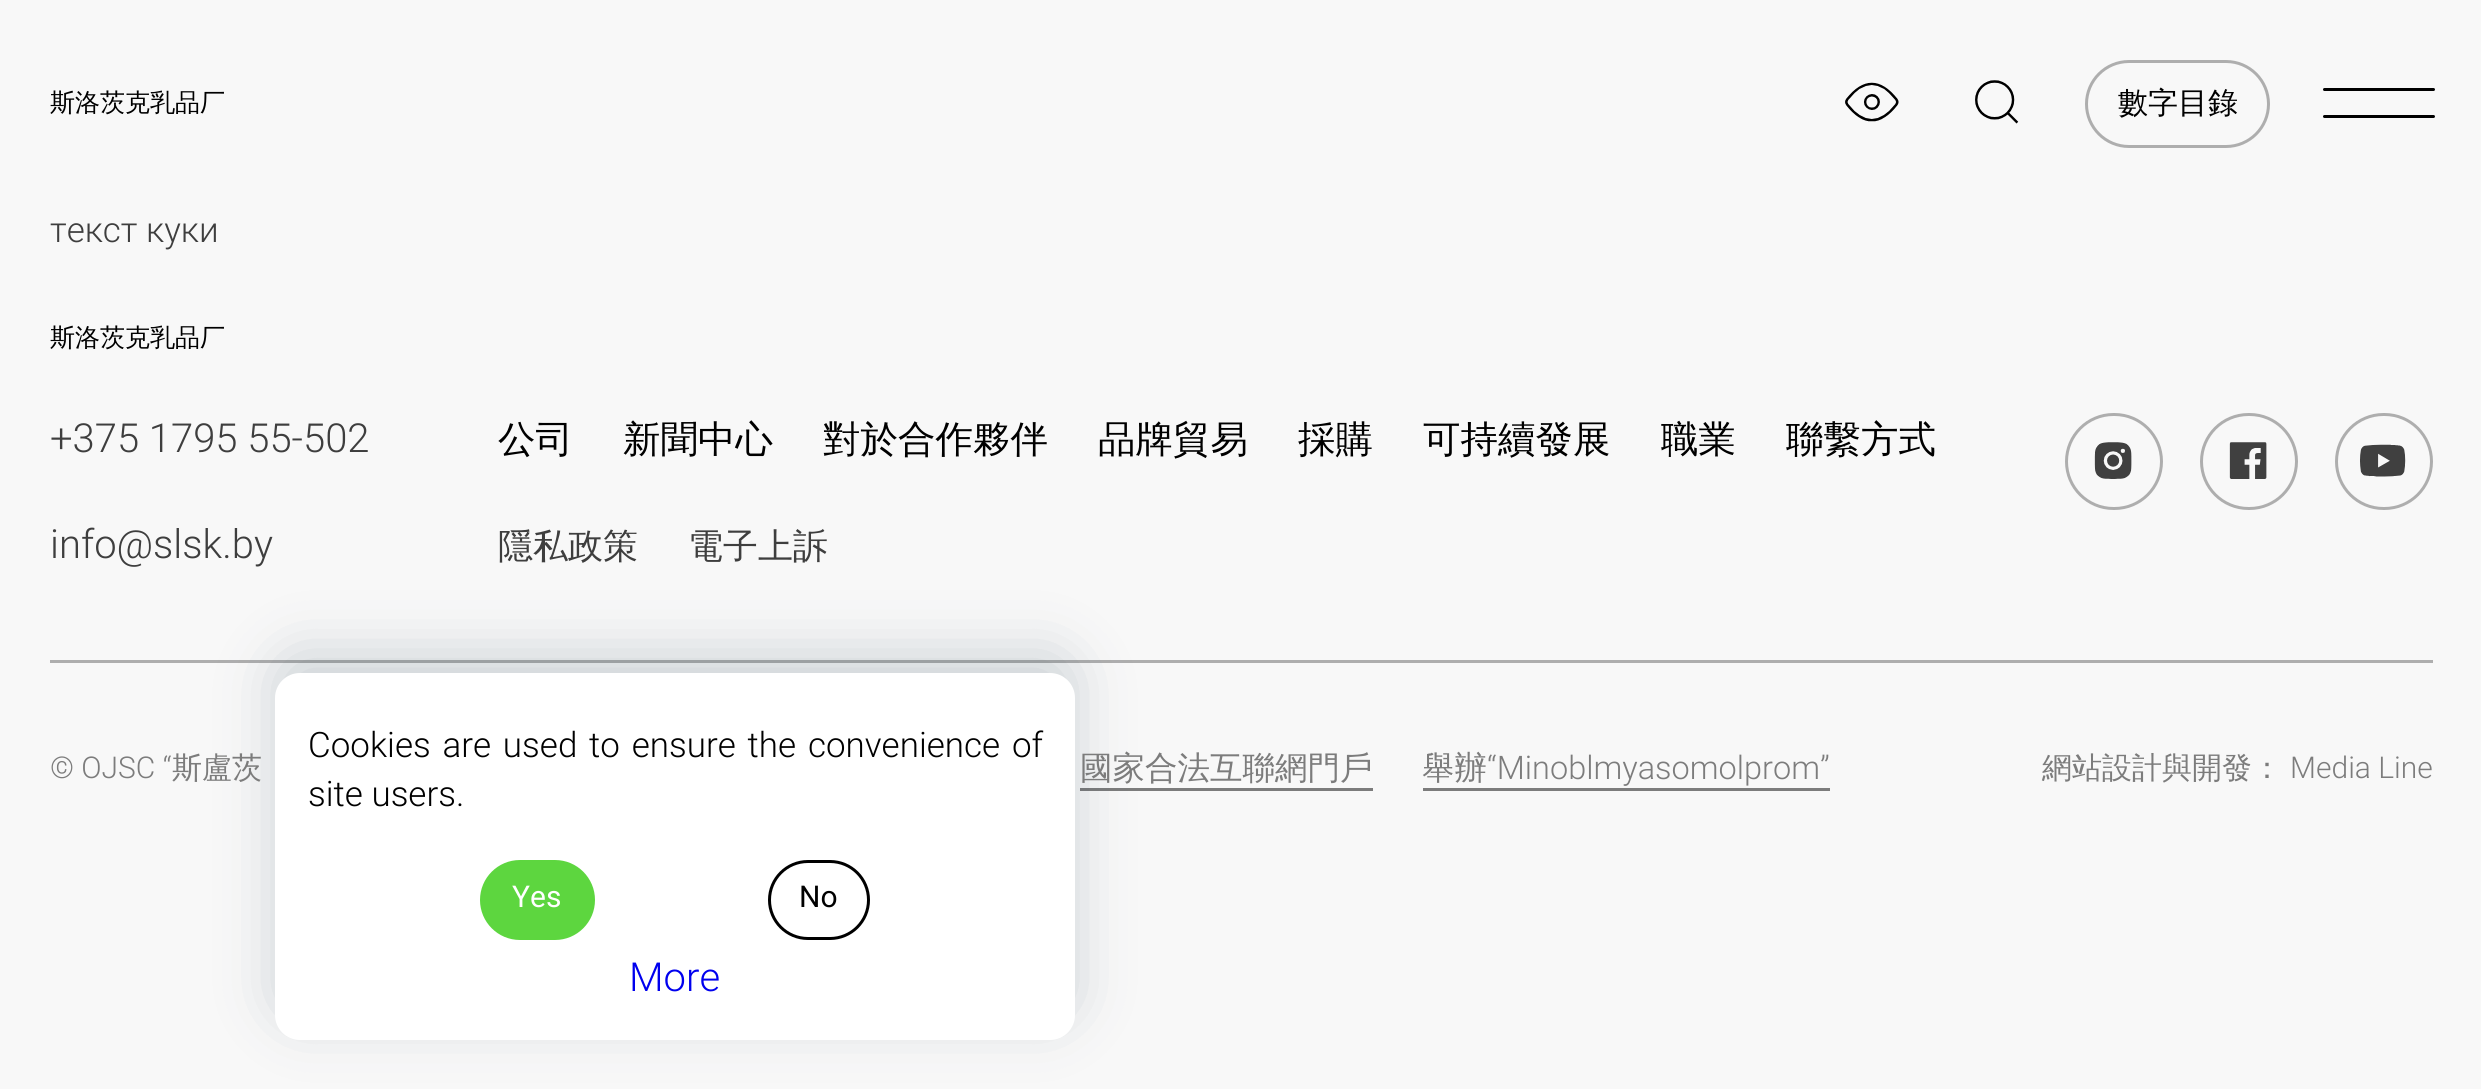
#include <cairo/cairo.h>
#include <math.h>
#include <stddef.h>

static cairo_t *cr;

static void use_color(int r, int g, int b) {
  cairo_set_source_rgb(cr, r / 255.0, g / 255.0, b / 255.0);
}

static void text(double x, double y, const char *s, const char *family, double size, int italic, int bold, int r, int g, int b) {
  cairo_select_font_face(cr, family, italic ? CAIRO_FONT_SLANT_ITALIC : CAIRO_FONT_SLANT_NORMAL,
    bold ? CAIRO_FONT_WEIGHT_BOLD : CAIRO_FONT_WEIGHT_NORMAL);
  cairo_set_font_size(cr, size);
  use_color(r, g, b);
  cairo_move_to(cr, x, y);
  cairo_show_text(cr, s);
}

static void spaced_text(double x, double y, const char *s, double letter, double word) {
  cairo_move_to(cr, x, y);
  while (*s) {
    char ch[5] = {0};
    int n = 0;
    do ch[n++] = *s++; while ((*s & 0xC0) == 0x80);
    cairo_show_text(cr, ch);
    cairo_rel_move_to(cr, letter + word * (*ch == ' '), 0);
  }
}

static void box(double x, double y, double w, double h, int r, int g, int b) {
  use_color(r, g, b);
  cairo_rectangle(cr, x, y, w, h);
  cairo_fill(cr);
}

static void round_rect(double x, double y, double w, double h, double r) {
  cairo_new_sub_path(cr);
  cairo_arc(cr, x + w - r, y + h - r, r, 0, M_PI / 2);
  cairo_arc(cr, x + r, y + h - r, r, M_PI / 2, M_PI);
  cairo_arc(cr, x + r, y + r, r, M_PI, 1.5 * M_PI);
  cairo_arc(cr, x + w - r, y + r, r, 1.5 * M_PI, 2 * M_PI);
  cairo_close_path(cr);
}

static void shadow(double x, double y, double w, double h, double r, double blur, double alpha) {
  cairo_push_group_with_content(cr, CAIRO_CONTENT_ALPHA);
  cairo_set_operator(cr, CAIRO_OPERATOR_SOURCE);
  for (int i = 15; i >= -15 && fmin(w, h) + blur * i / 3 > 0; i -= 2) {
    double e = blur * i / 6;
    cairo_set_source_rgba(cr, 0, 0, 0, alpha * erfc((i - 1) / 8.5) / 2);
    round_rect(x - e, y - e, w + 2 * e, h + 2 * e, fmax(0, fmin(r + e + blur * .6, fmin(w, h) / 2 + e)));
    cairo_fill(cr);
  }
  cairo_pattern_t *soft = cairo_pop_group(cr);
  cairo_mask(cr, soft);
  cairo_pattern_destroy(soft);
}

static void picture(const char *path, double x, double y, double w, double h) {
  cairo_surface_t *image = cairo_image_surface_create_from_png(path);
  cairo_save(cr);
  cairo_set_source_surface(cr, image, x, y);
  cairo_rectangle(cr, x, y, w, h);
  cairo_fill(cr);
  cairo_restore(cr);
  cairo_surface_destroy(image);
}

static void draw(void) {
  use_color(248, 248, 248);
  cairo_paint(cr);
  picture("img_01.png", 1845, 82, 54, 40);
  picture("img_02.png", 1975, 80, 44, 44);
  round_rect(2086.5, 61.5, 182, 85, 42.5);
  use_color(174, 174, 174);
  cairo_set_line_width(cr, 3);
  cairo_stroke(cr);
  use_color(0, 0, 0);
  round_rect(2323, 88, 112, 3, 1.5);
  cairo_fill(cr);
  round_rect(2323, 115, 112, 3, 1.5);
  cairo_fill(cr);
  round_rect(2066.5, 414.5, 95, 94, 47);
  use_color(174, 174, 174);
  cairo_stroke(cr);
  picture("img_03.png", 2094, 442, 38, 37);
  round_rect(2201.5, 414.5, 95, 94, 47);
  cairo_stroke(cr);
  picture("img_04.png", 2229, 442, 38, 37);
  round_rect(2336.5, 414.5, 95, 94, 47);
  cairo_stroke(cr);
  picture("img_05.png", 2360, 444, 46, 33);
  box(50, 660, 2383, 3, 174, 174, 174);
  box(1080, 788, 293, 3, 124, 124, 124);
  box(1423, 788, 407, 3, 124, 124, 124);
  use_color(34, 60, 80);
  shadow(275, 653, 800, 367, 25, 29, 0.2);
  use_color(255, 255, 255);
  round_rect(275, 673, 800, 367, 25);
  cairo_fill(cr);
  use_color(93, 214, 63);
  round_rect(481.5, 861.5, 112, 77, 38.5);
  cairo_fill_preserve(cr);
  cairo_stroke(cr);
  round_rect(769.5, 861.5, 99, 77, 38.5);
  use_color(0, 0, 0);
  cairo_stroke(cr);
  text(50, 111, "斯洛茨克乳品厂", "WenQuanYi Zen Hei Medium", 25, 0, 0, 0, 0, 0);
  text(2118, 113, "數字目錄", "WenQuanYi Zen Hei Medium", 30, 0, 0, 0, 0, 0);
  text(50, 242, "текст куки", "Roboto Light", 35, 0, 0, 62, 62, 62);
  text(50, 346, "斯洛茨克乳品厂", "WenQuanYi Zen Hei Medium", 25, 0, 0, 0, 0, 0);
  text(50, 452, "+375 1795 55-502", "Roboto Light", 40, 0, 0, 62, 62, 62);
  text(50, 558, "info@slsk.by", "Roboto Light", 40, 0, 0, 62, 62, 62);
  text(498, 452, "公司", "WenQuanYi Zen Hei Medium", 37.5, 0, 0, 0, 0, 0);
  text(623, 452, "新聞中心", "WenQuanYi Zen Hei Medium", 37.5, 0, 0, 0, 0, 0);
  text(823, 452, "對於合作夥伴", "WenQuanYi Zen Hei Medium", 37.5, 0, 0, 0, 0, 0);
  text(1098, 452, "品牌貿易", "WenQuanYi Zen Hei Medium", 37.5, 0, 0, 0, 0, 0);
  text(1298, 452, "採購", "WenQuanYi Zen Hei Medium", 37.5, 0, 0, 0, 0, 0);
  text(1423, 452, "可持續發展", "WenQuanYi Zen Hei Medium", 37.5, 0, 0, 0, 0, 0);
  text(1661, 452, "職業", "WenQuanYi Zen Hei Medium", 37.5, 0, 0, 0, 0, 0);
  text(1786, 452, "聯繫方式", "WenQuanYi Zen Hei Medium", 37.5, 0, 0, 0, 0, 0);
  text(498, 558, "隱私政策", "WenQuanYi Zen Hei Medium", 35, 0, 0, 62, 62, 62);
  text(688, 558, "電子上訴", "WenQuanYi Zen Hei Medium", 35, 0, 0, 62, 62, 62);
  text(50, 778, "© OJSC “", "Roboto Light", 30, 0, 0, 124, 124, 124);
  text(172, 778, "斯盧茨", "WenQuanYi Zen Hei Medium", 30, 0, 0, 124, 124, 124);
  text(1080, 779, "國家合法互聯網門戶", "WenQuanYi Zen Hei Medium", 32.5, 0, 0, 124, 124, 124);
  text(1422, 779, "舉辦", "WenQuanYi Zen Hei Medium", 32.5, 0, 0, 124, 124, 124);
  text(1487, 779, "“Minoblmyasomolprom”", "Roboto Light", 32.5, 0, 0, 124, 124, 124);
  text(2042, 778, "網站設計與開發：", "WenQuanYi Zen Hei Medium", 30, 0, 0, 124, 124, 124);
  text(2290, 778, "Media Line", "Roboto Light", 30, 0, 0, 124, 124, 124);
  cairo_set_font_size(cr, 35);
  use_color(0, 0, 0);
  spaced_text(308, 757, "Cookies are used to ensure the convenience of", 0, 3.25);
  text(308, 806, "site users.", "Roboto Light", 35, 0, 0, 0, 0, 0);
  text(512, 907, "Yes", "Roboto", 30, 0, 0, 255, 255, 255);
  text(799, 907, "No", "Roboto", 30, 0, 0, 0, 0, 0);
  text(629, 991, "More", "Roboto Light", 40, 0, 0, 0, 0, 238);
}

int main(void) {
  cairo_surface_t *surface = cairo_image_surface_create(CAIRO_FORMAT_RGB24, 2481, 1089);
  cr = cairo_create(surface);
  cairo_font_options_t *options = cairo_font_options_create();
  cairo_font_options_set_hint_metrics(options, CAIRO_HINT_METRICS_OFF);
  cairo_font_options_set_hint_style(options, CAIRO_HINT_STYLE_NONE);
  cairo_set_font_options(cr, options);
  cairo_set_miter_limit(cr, 4);
  draw();
  cairo_surface_write_to_png(surface, "out.png");
  cairo_font_options_destroy(options);
  cairo_destroy(cr);
  cairo_surface_destroy(surface);
  return 0;
}
